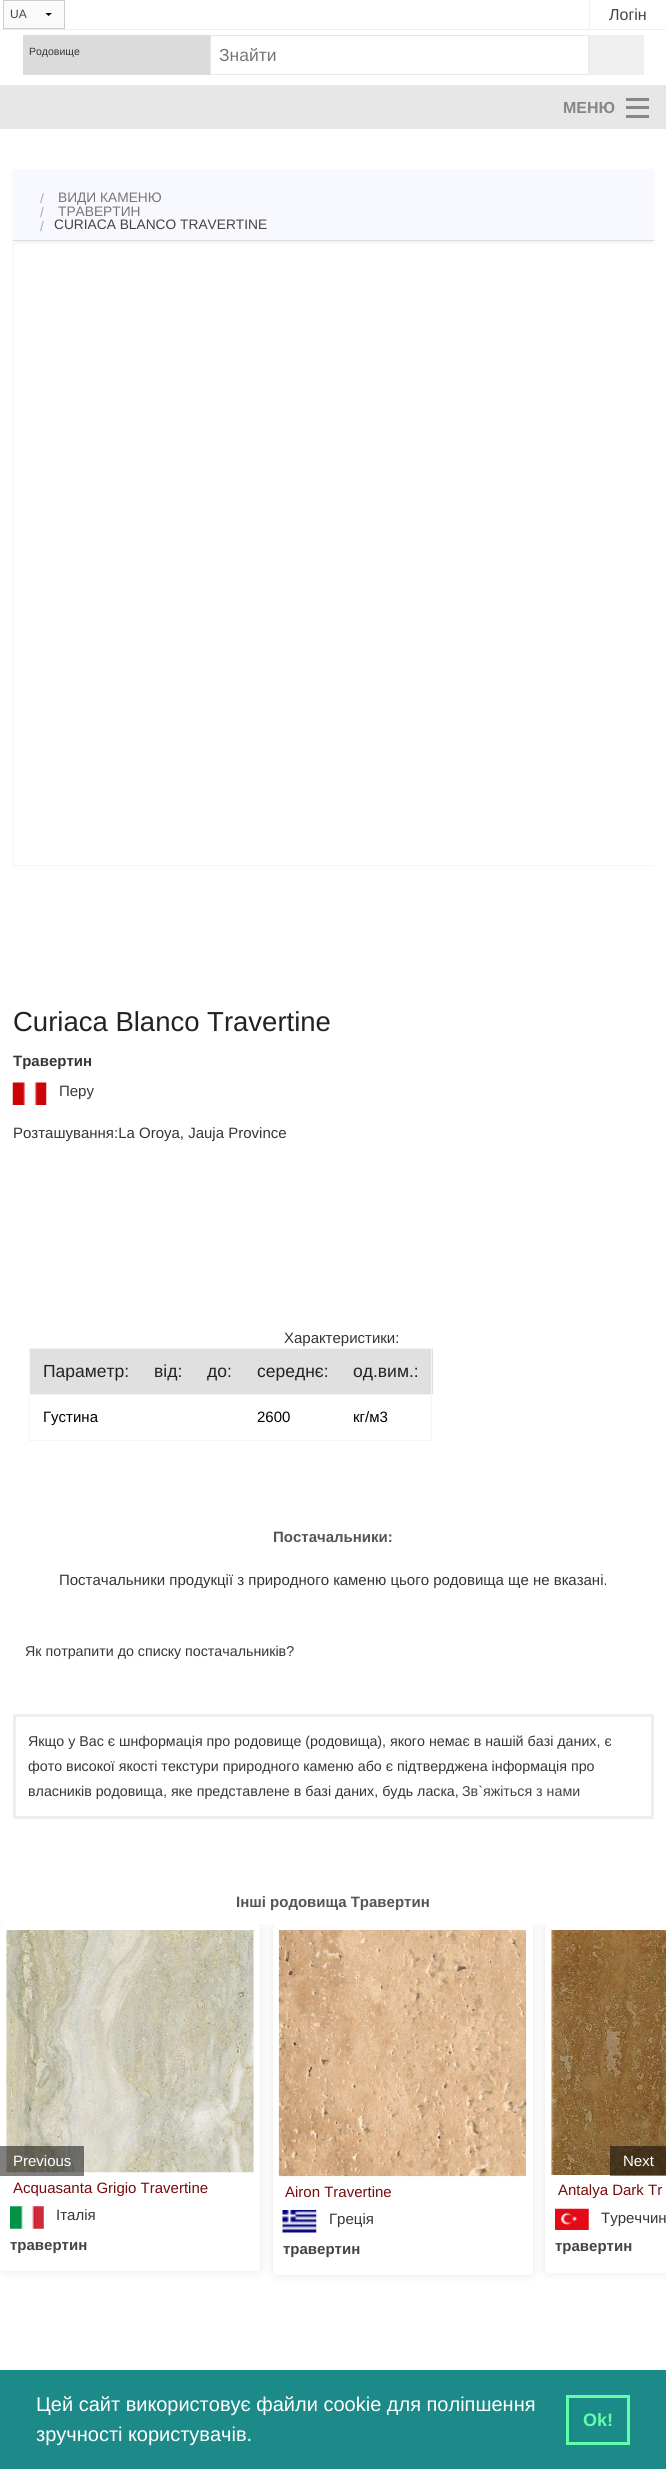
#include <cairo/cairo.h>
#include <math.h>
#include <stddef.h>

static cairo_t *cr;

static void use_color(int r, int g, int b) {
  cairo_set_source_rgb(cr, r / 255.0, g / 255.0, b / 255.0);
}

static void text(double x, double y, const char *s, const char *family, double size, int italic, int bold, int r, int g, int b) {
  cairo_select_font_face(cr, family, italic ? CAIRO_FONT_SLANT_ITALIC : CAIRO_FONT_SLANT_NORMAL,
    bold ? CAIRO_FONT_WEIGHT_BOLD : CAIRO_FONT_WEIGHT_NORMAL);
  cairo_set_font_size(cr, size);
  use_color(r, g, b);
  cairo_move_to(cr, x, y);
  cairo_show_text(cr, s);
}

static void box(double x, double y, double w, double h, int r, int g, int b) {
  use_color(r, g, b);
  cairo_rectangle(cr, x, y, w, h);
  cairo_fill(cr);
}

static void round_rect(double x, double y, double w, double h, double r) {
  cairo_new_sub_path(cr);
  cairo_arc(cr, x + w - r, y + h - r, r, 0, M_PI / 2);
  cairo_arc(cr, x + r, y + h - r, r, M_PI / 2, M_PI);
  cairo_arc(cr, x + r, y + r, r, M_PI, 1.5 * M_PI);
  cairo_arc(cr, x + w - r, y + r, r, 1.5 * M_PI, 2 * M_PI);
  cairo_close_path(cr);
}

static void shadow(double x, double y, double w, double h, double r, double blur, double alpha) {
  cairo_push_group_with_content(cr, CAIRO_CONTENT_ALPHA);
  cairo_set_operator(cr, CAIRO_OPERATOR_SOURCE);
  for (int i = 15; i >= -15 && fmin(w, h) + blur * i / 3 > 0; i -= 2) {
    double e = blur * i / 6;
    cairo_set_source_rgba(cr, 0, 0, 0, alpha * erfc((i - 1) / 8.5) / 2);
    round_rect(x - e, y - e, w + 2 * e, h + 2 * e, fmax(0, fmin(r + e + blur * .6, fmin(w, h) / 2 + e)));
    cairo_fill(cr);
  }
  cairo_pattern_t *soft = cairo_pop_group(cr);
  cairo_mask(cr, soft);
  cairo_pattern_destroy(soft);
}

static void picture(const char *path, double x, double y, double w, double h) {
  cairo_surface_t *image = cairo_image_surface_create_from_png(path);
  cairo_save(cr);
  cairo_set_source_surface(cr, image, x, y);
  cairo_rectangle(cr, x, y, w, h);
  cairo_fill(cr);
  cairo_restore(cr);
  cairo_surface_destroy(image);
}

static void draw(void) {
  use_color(255, 255, 255);
  cairo_paint(cr);
  box(4, 1, 60, 27, 250, 250, 250);
  cairo_save(cr);
  cairo_rectangle(cr, 34, 13, 30, 4);
  cairo_clip(cr);
  use_color(0, 0, 0);
  cairo_new_path(cr);
  cairo_move_to(cr, 52.5, 12.5);
  cairo_line_to(cr, 48.5, 16);
  cairo_line_to(cr, 45, 12.5);
  cairo_close_path(cr);
  cairo_fill(cr);
  cairo_restore(cr);
  cairo_rectangle(cr, 3.5, 0.5, 61, 28);
  use_color(204, 204, 204);
  cairo_set_line_width(cr, 1);
  cairo_stroke(cr);
  box(0, 29, 666, 1, 239, 239, 239);
  box(589, 0, 1, 30, 239, 239, 239);
  box(23, 35, 187, 40, 219, 219, 219);
  cairo_rectangle(cr, 210.5, 35.5, 378, 39);
  use_color(232, 232, 232);
  cairo_stroke(cr);
  box(589, 35, 55, 40, 239, 239, 239);
  box(0, 85, 666, 44, 231, 231, 231);
  box(626, 115, 23, 3, 134, 134, 134);
  box(626, 106, 23, 3, 134, 134, 134);
  box(626, 98, 23, 3, 134, 134, 134);
  use_color(221, 221, 221);
  shadow(15, 174, 636, 67, 0, 2.5, 1);
  box(13, 169, 641, 71, 248, 248, 255);
  box(13, 240, 641, 1, 221, 221, 221);
  cairo_save(cr);
  cairo_rectangle(cr, 13, 241, 641, 1225);
  cairo_clip(cr);
  cairo_rectangle(cr, 13.5, 241.5, 651, 624);
  use_color(245, 245, 245);
  cairo_stroke(cr);
  cairo_restore(cr);
  picture("img_01.png", 12, 1082, 35, 23);
  box(30, 1349, 403, 45, 224, 224, 224);
  box(29, 1348, 404, 1, 245, 245, 245);
  box(29, 1394, 404, 1, 245, 245, 245);
  box(431, 1394, 1, 47, 245, 245, 245);
  box(431, 1348, 1, 47, 245, 245, 245);
  box(29, 1440, 404, 1, 245, 245, 245);
  box(29, 1394, 1, 47, 245, 245, 245);
  box(29, 1348, 1, 47, 245, 245, 245);
  cairo_rectangle(cr, 14.5, 1715.5, 638, 102);
  use_color(238, 238, 238);
  cairo_set_line_width(cr, 3);
  cairo_stroke(cr);
  cairo_save(cr);
  cairo_rectangle(cr, 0, 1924, 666, 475);
  cairo_clip(cr);
  cairo_set_fill_rule(cr, CAIRO_FILL_RULE_EVEN_ODD);
  cairo_new_path(cr);
  cairo_move_to(cr, 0, 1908);
  cairo_line_to(cr, 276, 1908);
  cairo_line_to(cr, 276, 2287);
  cairo_line_to(cr, 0, 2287);
  cairo_close_path(cr);
  cairo_move_to(cr, 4, 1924);
  cairo_line_to(cr, 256, 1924);
  cairo_curve_to(cr, 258, 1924, 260, 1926, 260, 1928);
  cairo_line_to(cr, 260, 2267);
  cairo_curve_to(cr, 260, 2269, 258, 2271, 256, 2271);
  cairo_line_to(cr, 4, 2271);
  cairo_curve_to(cr, 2, 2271, 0, 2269, 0, 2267);
  cairo_line_to(cr, 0, 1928);
  cairo_curve_to(cr, 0, 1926, 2, 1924, 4, 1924);
  cairo_close_path(cr);
  cairo_clip(cr);
  use_color(0, 0, 0);
  shadow(0, 1924, 260, 347, 4, 5, 0.1);
  cairo_restore(cr);
  picture("img_02.png", 6, 1930, 248, 243);
  cairo_set_source_rgba(cr, 0, 0, 0, 0.5);
  cairo_rectangle(cr, 0, 2146, 84, 30);
  cairo_fill(cr);
  cairo_save(cr);
  cairo_rectangle(cr, 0, 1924, 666, 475);
  cairo_clip(cr);
  cairo_set_fill_rule(cr, CAIRO_FILL_RULE_EVEN_ODD);
  cairo_new_path(cr);
  cairo_move_to(cr, 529, 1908);
  cairo_line_to(cr, 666, 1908);
  cairo_line_to(cr, 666, 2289);
  cairo_line_to(cr, 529, 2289);
  cairo_close_path(cr);
  cairo_move_to(cr, 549, 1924);
  cairo_line_to(cr, 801, 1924);
  cairo_curve_to(cr, 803, 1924, 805, 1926, 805, 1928);
  cairo_line_to(cr, 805, 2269);
  cairo_curve_to(cr, 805, 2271, 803, 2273, 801, 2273);
  cairo_line_to(cr, 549, 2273);
  cairo_curve_to(cr, 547, 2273, 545, 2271, 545, 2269);
  cairo_line_to(cr, 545, 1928);
  cairo_curve_to(cr, 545, 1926, 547, 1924, 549, 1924);
  cairo_close_path(cr);
  cairo_clip(cr);
  use_color(0, 0, 0);
  shadow(545, 1924, 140, 349, 4, 5, 0.1);
  cairo_restore(cr);
  picture("img_06.png", 551, 1930, 115, 245);
  cairo_rectangle(cr, 610, 2146, 56, 30);
  cairo_fill(cr);
  picture("img_03.png", 10, 2206, 34, 23);
  cairo_save(cr);
  cairo_rectangle(cr, 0, 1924, 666, 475);
  cairo_clip(cr);
  cairo_set_fill_rule(cr, CAIRO_FILL_RULE_EVEN_ODD);
  cairo_new_path(cr);
  cairo_move_to(cr, 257, 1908);
  cairo_line_to(cr, 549, 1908);
  cairo_line_to(cr, 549, 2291);
  cairo_line_to(cr, 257, 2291);
  cairo_close_path(cr);
  cairo_move_to(cr, 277, 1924);
  cairo_line_to(cr, 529, 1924);
  cairo_curve_to(cr, 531, 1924, 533, 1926, 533, 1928);
  cairo_line_to(cr, 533, 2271);
  cairo_curve_to(cr, 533, 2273, 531, 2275, 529, 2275);
  cairo_line_to(cr, 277, 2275);
  cairo_curve_to(cr, 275, 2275, 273, 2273, 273, 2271);
  cairo_line_to(cr, 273, 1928);
  cairo_curve_to(cr, 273, 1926, 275, 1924, 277, 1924);
  cairo_close_path(cr);
  cairo_clip(cr);
  use_color(0, 0, 0);
  shadow(273, 1924, 260, 351, 4, 5, 0.1);
  cairo_restore(cr);
  picture("img_04.png", 278, 1930, 249, 247);
  picture("img_05.png", 282, 2210, 35, 23);
  picture("img_07.png", 555, 2208, 34, 22);
  box(0, 2370, 666, 99, 29, 138, 138);
  cairo_rectangle(cr, 567.5, 2396.5, 61, 47);
  use_color(98, 255, 170);
  cairo_stroke(cr);
  text(10, 18, "UA", "Liberation Sans", 12, 0, 0, 68, 68, 68);
  text(609, 20, "Логін", "Liberation Sans", 16, 0, 0, 68, 68, 68);
  text(29, 55, "Родовище", "Liberation Sans", 10.5, 0, 0, 54, 54, 54);
  text(219, 61, "Знайти", "Liberation Sans", 17.5, 0, 0, 119, 119, 119);
  text(563, 113, "МЕНЮ", "Liberation Sans", 16, 0, 1, 134, 134, 134);
  text(40, 203, "/", "Liberation Sans", 13.75, 0, 0, 170, 170, 170);
  text(58, 202, "ВИДИ КАМЕНЮ", "Liberation Sans", 13.75, 0, 0, 119, 119, 119);
  text(40, 217, "/", "Liberation Sans", 13.75, 0, 0, 170, 170, 170);
  text(58, 216, "ТРАВЕРТИН", "Liberation Sans", 13.75, 0, 0, 119, 119, 119);
  text(40, 231, "/", "Liberation Sans", 13.75, 0, 0, 170, 170, 170);
  text(54, 229, "CURIACA BLANCO TRAVERTINE", "Liberation Sans", 13.75, 0, 0, 68, 68, 68);
  text(13, 1031, "Curiaca Blanco Travertine", "Liberation Sans", 27.5, 0, 0, 34, 34, 34);
  cairo_save(cr);
  cairo_rectangle(cr, 13, 241, 641, 1225);
  cairo_clip(cr);
  text(13, 1066, "Травертин", "Liberation Sans", 15, 0, 1, 54, 54, 54);
  cairo_restore(cr);
  text(59, 1096, "Перу", "Liberation Sans", 15, 0, 0, 54, 54, 54);
  text(13, 1138, "Розташування:La Oroya, Jauja Province", "Liberation Sans", 15, 0, 0, 54, 54, 54);
  text(284, 1343, "Характеристики:", "Liberation Sans", 15, 0, 0, 54, 54, 54);
  text(43, 1377, "Параметр:", "Liberation Sans", 17.5, 0, 0, 34, 34, 34);
  text(154, 1377, "від:", "Liberation Sans", 17.5, 0, 0, 34, 34, 34);
  text(207, 1377, "до:", "Liberation Sans", 17.5, 0, 0, 34, 34, 34);
  text(257, 1377, "середнє:", "Liberation Sans", 17.5, 0, 0, 34, 34, 34);
  text(353, 1377, "од.вим.:", "Liberation Sans", 17.5, 0, 0, 34, 34, 34);
  text(43, 1422, "Густина", "Liberation Sans", 15, 0, 0, 0, 0, 0);
  text(257, 1422, "2600", "Liberation Sans", 15, 0, 0, 0, 0, 0);
  text(353, 1422, "кг/м3", "Liberation Sans", 15, 0, 0, 0, 0, 0);
  text(273, 1542, "Постачальники:", "Liberation Sans", 15, 0, 1, 85, 85, 85);
  text(59, 1585, "Постачальники продукції з природного каменю цього родовища ще не вказані.", "Liberation Sans", 15, 0, 0, 54, 54, 54);
  text(25, 1656, "Як потрапити до списку постачальників?", "Liberation Sans", 14.25, 0, 0, 54, 54, 54);
  text(28, 1746, "Якщо у Вас є шнформація про родовище (родовища), якого немає в нашій базі даних, є", "Liberation Sans", 14.25, 0, 0, 54, 54, 54);
  text(28, 1771, "фото високої якості текстури природного каменю або є підтверджена інформація про", "Liberation Sans", 14.25, 0, 0, 54, 54, 54);
  text(28, 1796, "власників родовища, яке представлене в базі даних, будь ласка,", "Liberation Sans", 14.25, 0, 0, 54, 54, 54);
  text(462, 1796, "Зв`яжіться з нами", "Liberation Sans", 14.25, 0, 0, 68, 68, 68);
  text(236, 1907, "Інші родовища Травертин", "Liberation Sans", 15, 0, 1, 85, 85, 85);
  text(13, 2166, "Previous", "Liberation Sans", 15, 0, 0, 255, 255, 255);
  text(623, 2166, "Next", "Liberation Sans", 15, 0, 0, 255, 255, 255);
  text(13, 2193, "Acquasanta Grigio Travertine", "Liberation Sans", 15, 0, 0, 119, 12, 12);
  text(56, 2220, "Італія", "Liberation Sans", 15, 0, 0, 54, 54, 54);
  text(10, 2250, "травертин", "Liberation Sans", 15, 0, 1, 68, 68, 68);
  text(285, 2197, "Airon Travertine", "Liberation Sans", 15, 0, 0, 119, 12, 12);
  text(329, 2224, "Греція", "Liberation Sans", 15, 0, 0, 54, 54, 54);
  text(283, 2254, "травертин", "Liberation Sans", 15, 0, 1, 68, 68, 68);
  text(558, 2195, "Antalya Dark Tr", "Liberation Sans", 15, 0, 0, 119, 12, 12);
  text(601, 2223, "Туреччин", "Liberation Sans", 15, 0, 0, 54, 54, 54);
  text(555, 2251, "травертин", "Liberation Sans", 15, 0, 1, 68, 68, 68);
  text(36, 2411, "Цей сайт використовує файли cookie для поліпшення", "Liberation Sans", 20, 0, 0, 255, 255, 255);
  text(36, 2441, "зручності користувачів.", "Liberation Sans", 20, 0, 0, 255, 255, 255);
  text(583, 2426, "Ok!", "Liberation Sans", 18, 0, 1, 98, 255, 170);
}

int main(void) {
  cairo_surface_t *surface = cairo_image_surface_create(CAIRO_FORMAT_RGB24, 666, 2469);
  cr = cairo_create(surface);
  cairo_font_options_t *options = cairo_font_options_create();
  cairo_font_options_set_hint_metrics(options, CAIRO_HINT_METRICS_OFF);
  cairo_font_options_set_hint_style(options, CAIRO_HINT_STYLE_NONE);
  cairo_set_font_options(cr, options);
  cairo_set_miter_limit(cr, 4);
  draw();
  cairo_surface_write_to_png(surface, "out.png");
  cairo_font_options_destroy(options);
  cairo_destroy(cr);
  cairo_surface_destroy(surface);
  return 0;
}
